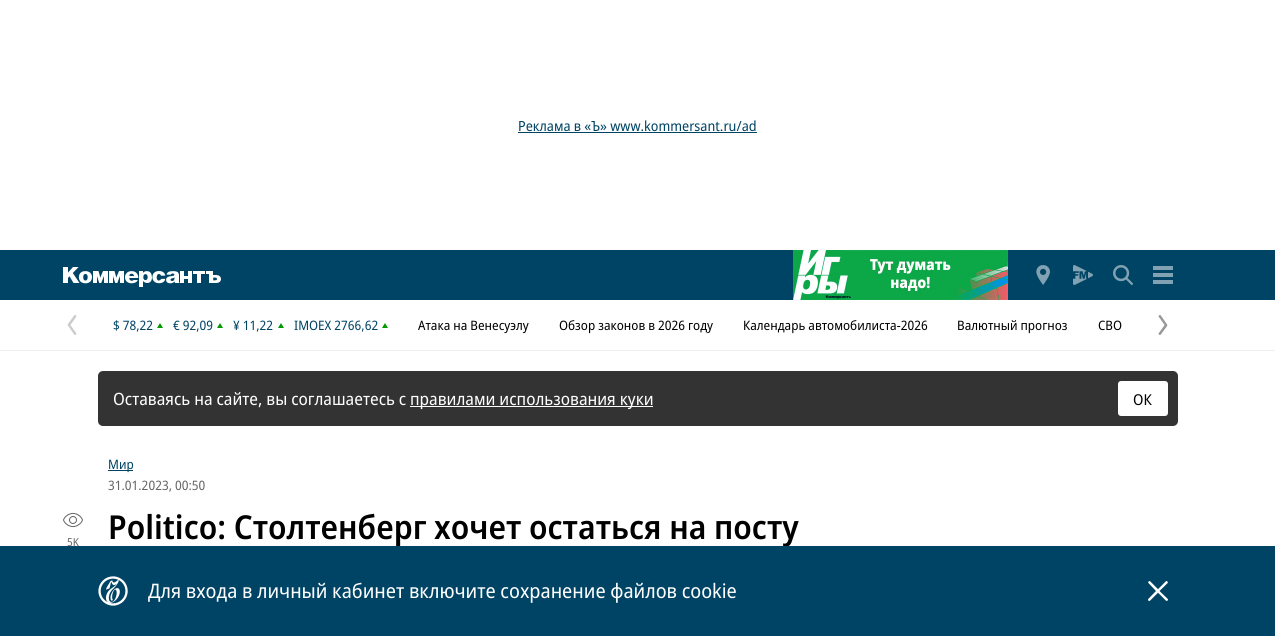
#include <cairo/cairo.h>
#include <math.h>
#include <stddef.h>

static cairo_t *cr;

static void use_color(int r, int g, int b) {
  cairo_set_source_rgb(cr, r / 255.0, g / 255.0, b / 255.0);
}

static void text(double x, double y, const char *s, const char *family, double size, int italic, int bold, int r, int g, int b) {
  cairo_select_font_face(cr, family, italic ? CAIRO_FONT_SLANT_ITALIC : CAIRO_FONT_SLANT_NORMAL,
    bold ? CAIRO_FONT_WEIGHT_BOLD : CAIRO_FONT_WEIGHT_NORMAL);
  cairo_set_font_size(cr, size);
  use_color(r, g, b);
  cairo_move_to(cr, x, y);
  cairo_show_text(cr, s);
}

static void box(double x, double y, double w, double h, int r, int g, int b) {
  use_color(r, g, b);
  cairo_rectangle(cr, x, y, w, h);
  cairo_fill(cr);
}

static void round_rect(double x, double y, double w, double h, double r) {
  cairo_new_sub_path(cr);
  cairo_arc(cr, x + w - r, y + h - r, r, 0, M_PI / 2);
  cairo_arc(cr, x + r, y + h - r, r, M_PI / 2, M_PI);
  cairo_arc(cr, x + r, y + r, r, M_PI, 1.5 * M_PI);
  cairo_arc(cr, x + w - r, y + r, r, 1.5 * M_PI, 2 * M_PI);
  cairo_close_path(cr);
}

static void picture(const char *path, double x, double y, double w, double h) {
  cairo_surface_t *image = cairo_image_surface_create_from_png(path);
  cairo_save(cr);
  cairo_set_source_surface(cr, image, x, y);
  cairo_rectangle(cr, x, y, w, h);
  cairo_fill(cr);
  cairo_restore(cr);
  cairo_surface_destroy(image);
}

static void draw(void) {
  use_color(255, 255, 255);
  cairo_paint(cr);
  box(518, 132, 239, 1, 0, 68, 101);
  box(0, 250, 1275, 50, 0, 68, 101);
  picture("img_01.png", 63, 267, 158, 20);
  picture("img_02.png", 793, 250, 215, 50);
  picture("img_03.png", 1036, 265, 14, 20);
  picture("img_04.png", 1073, 265, 20, 20);
  picture("img_05.png", 1113, 265, 20, 20);
  picture("img_06.png", 1153, 266, 20, 18);
  box(0, 350, 1275, 1, 238, 238, 238);
  picture("img_07.png", 67, 315, 10, 20);
  use_color(0, 153, 0);
  cairo_new_path(cr);
  cairo_move_to(cr, 163, 328);
  cairo_line_to(cr, 157, 328);
  cairo_line_to(cr, 160, 323);
  cairo_close_path(cr);
  cairo_fill(cr);
  cairo_new_path(cr);
  cairo_move_to(cr, 223, 328);
  cairo_line_to(cr, 217, 328);
  cairo_line_to(cr, 220, 323);
  cairo_close_path(cr);
  cairo_fill(cr);
  cairo_new_path(cr);
  cairo_move_to(cr, 284, 328);
  cairo_line_to(cr, 278, 328);
  cairo_line_to(cr, 281, 323);
  cairo_close_path(cr);
  cairo_fill(cr);
  cairo_new_path(cr);
  cairo_move_to(cr, 388, 328);
  cairo_line_to(cr, 382, 328);
  cairo_line_to(cr, 385, 323);
  cairo_close_path(cr);
  cairo_fill(cr);
  picture("img_08.png", 1158, 315, 10, 20);
  use_color(51, 51, 51);
  round_rect(98, 371, 1080, 55, 5);
  cairo_fill(cr);
  box(410, 406, 243, 1, 255, 255, 255);
  round_rect(1118, 381, 50, 35, 3);
  cairo_fill(cr);
  box(108, 470, 25, 1, 0, 68, 101);
  picture("img_09.png", 63, 512, 20, 16);
  text(518, 131, "Реклама в «Ъ» www.kommersant.ru/ad", "Noto Sans", 14, 0, 0, 0, 68, 101);
  text(113, 330, "$ 78,22", "Noto Sans", 13, 0, 0, 0, 68, 101);
  text(173, 330, "€ 92,09", "Noto Sans", 13, 0, 0, 0, 68, 101);
  text(233, 330, "¥ 11,22", "Noto Sans", 13, 0, 0, 0, 68, 101);
  text(294, 330, "IMOEX 2766,62", "Noto Sans", 13, 0, 0, 0, 68, 101);
  text(418, 330, "Атака на Венесуэлу", "Noto Sans", 13, 0, 0, 0, 0, 0);
  text(559, 330, "Обзор законов в 2026 году", "Noto Sans", 13, 0, 0, 0, 0, 0);
  text(743, 330, "Календарь автомобилиста-2026", "Noto Sans", 13, 0, 0, 0, 0, 0);
  text(957, 330, "Валютный прогноз", "Noto Sans", 13, 0, 0, 0, 0, 0);
  text(1098, 330, "СВО", "Noto Sans", 13, 0, 0, 0, 0, 0);
  text(113, 405, "Оставаясь на сайте, вы соглашаетесь с", "Noto Sans", 17, 0, 0, 255, 255, 255);
  text(410, 405, "правилами использования куки", "Noto Sans", 17, 0, 0, 255, 255, 255);
  text(1133, 405, "ОК", "Noto Sans", 15, 0, 0, 0, 0, 0);
  text(108, 469, "Мир", "Noto Sans", 13, 0, 0, 0, 68, 101);
  text(108, 490, "31.01.2023, 00:50", "Noto Sans", 13, 0, 0, 102, 102, 102);
  text(67, 546, "5K", "Noto Sans", 11, 0, 0, 102, 102, 102);
  text(108, 539, "Politico: Столтенберг хочет остаться на посту", "Noto Sans SemiBold", 33, 0, 0, 0, 0, 0);
  box(0, 546, 1275, 90, 0, 68, 101);
  picture("img_10.png", 98, 576, 30, 30);
  text(148, 598, "Для входа в личный кабинет включите сохранение файлов cookie", "Noto Sans", 20, 0, 0, 255, 255, 255);
  picture("img_11.png", 1148, 581, 20, 20);
}

int main(void) {
  cairo_surface_t *surface = cairo_image_surface_create(CAIRO_FORMAT_RGB24, 1275, 636);
  cr = cairo_create(surface);
  cairo_font_options_t *options = cairo_font_options_create();
  cairo_font_options_set_hint_metrics(options, CAIRO_HINT_METRICS_OFF);
  cairo_font_options_set_hint_style(options, CAIRO_HINT_STYLE_NONE);
  cairo_set_font_options(cr, options);
  cairo_set_miter_limit(cr, 4);
  draw();
  cairo_surface_write_to_png(surface, "out.png");
  cairo_font_options_destroy(options);
  cairo_destroy(cr);
  cairo_surface_destroy(surface);
  return 0;
}
